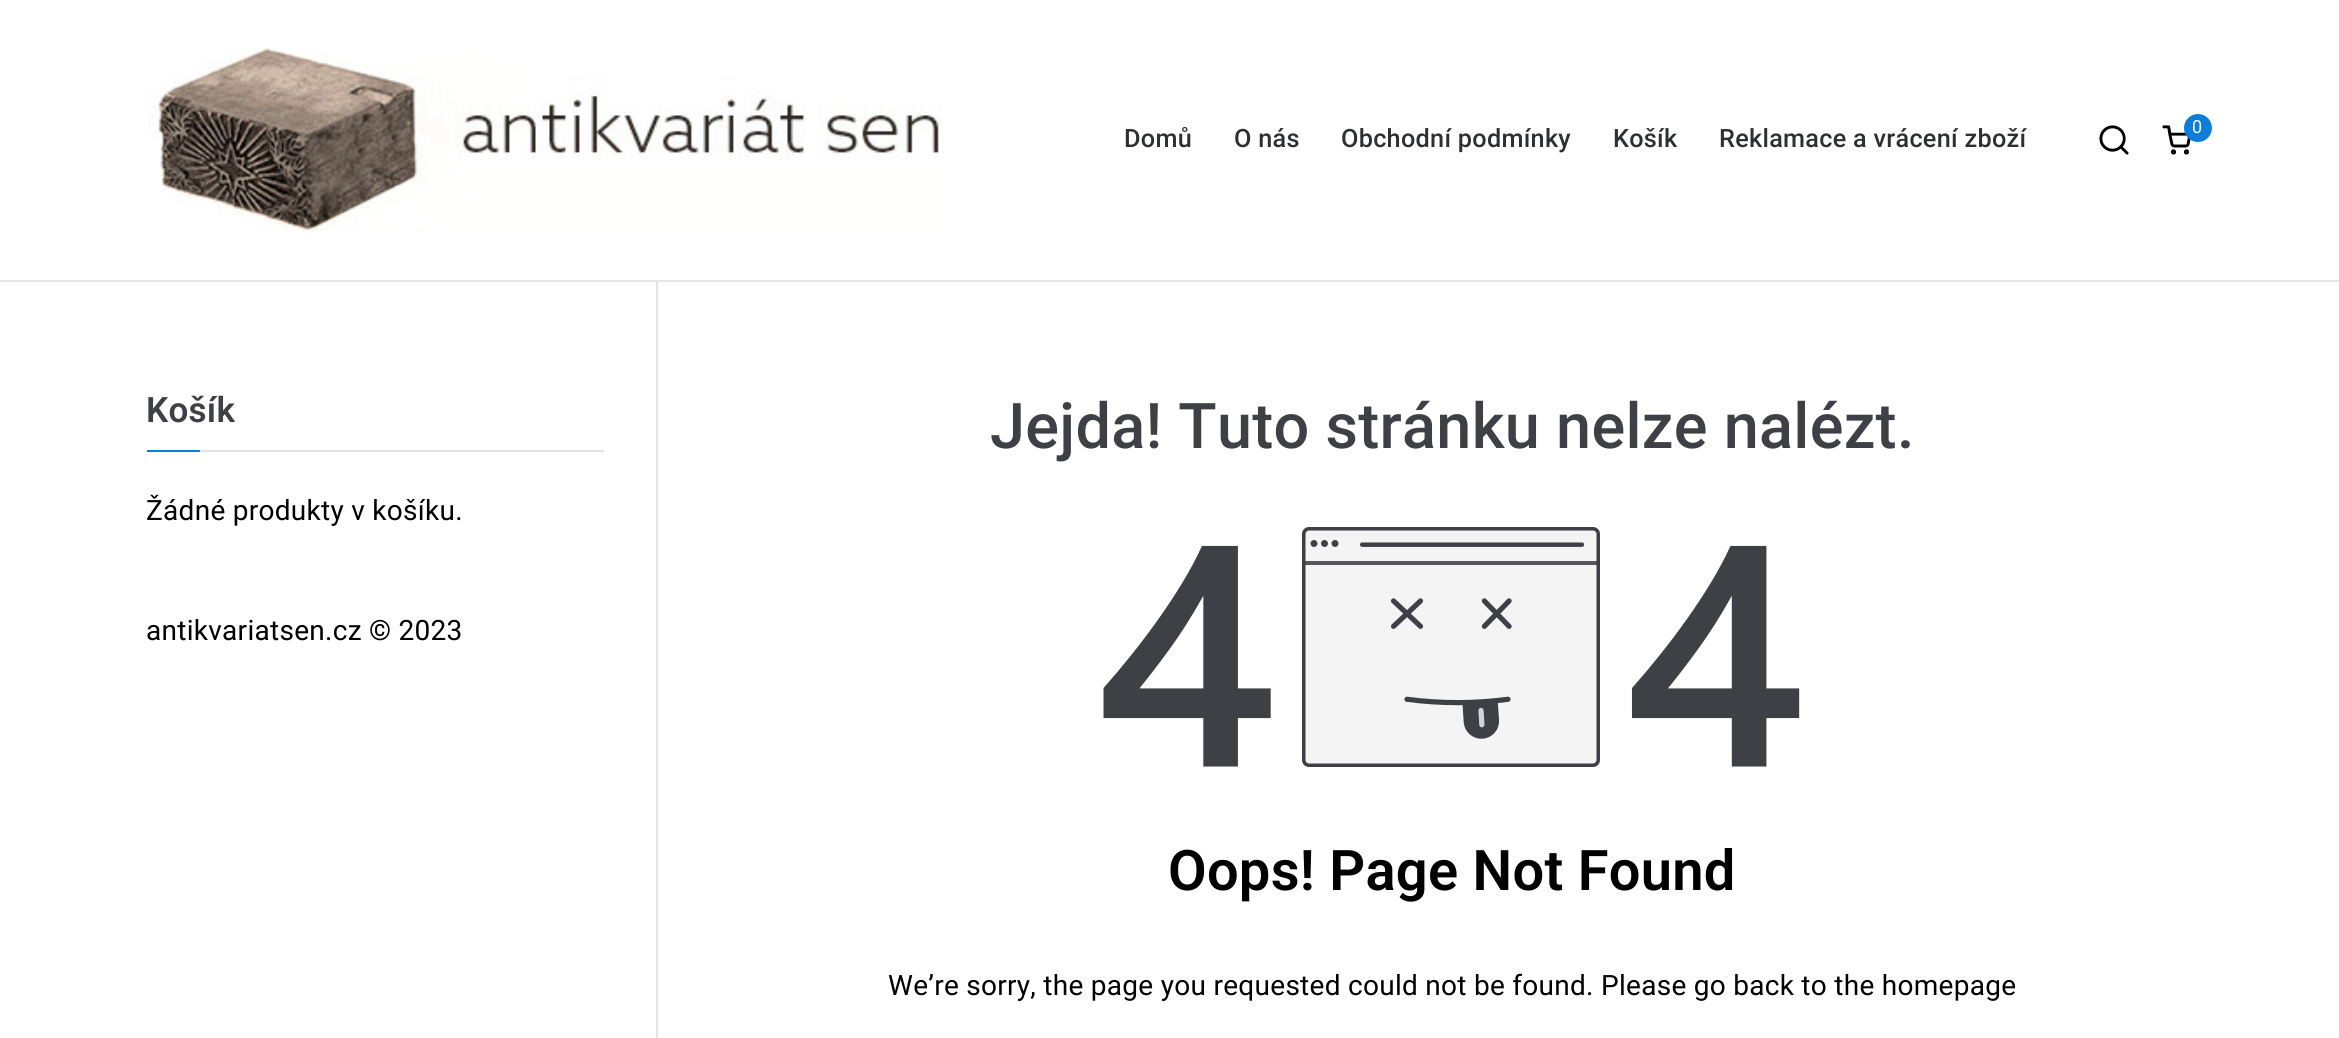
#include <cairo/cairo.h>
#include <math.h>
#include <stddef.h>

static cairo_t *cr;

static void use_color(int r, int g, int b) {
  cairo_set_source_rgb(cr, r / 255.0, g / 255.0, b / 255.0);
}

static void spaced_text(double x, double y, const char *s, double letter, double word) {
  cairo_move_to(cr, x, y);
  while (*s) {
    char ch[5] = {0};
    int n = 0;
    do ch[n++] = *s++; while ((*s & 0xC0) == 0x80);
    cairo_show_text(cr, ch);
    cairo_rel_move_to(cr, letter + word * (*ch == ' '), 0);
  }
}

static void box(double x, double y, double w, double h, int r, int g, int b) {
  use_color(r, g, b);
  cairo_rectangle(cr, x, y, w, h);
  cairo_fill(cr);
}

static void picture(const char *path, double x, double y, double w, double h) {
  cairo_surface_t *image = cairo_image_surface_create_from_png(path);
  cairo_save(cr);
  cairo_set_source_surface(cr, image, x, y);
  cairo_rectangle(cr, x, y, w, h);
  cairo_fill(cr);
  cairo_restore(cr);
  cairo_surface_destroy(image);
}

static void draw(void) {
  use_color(228, 228, 231);
  cairo_paint(cr);
  box(0, 0, 2339, 280, 255, 255, 255);
  picture("img_01.png", 147, 48, 796, 185);
  picture("img_02.png", 2099, 125, 30, 30);
  picture("img_03.png", 2162, 125, 29, 30);
  use_color(14, 125, 216);
  cairo_arc(cr, 2198, 128, 14, 0, 2 * M_PI);
  cairo_fill(cr);
  box(0, 282, 2339, 756, 255, 255, 255);
  box(656, 282, 2, 756, 228, 228, 231);
  box(200, 450, 404, 2, 228, 228, 231);
  box(147, 450, 53, 2, 14, 125, 216);
  picture("img_04.png", 1103, 527, 697, 240);
  cairo_select_font_face(cr, "Roboto Medium", CAIRO_FONT_SLANT_NORMAL, CAIRO_FONT_WEIGHT_NORMAL);
  cairo_set_font_size(cr, 25.25);
  use_color(45, 47, 49);
  spaced_text(1124, 147, "Domů", 0.28, 0);
  spaced_text(1234, 147, "O nás", 0.28, 0);
  spaced_text(1341, 147, "Obchodní podmínky", 0.28, 0);
  spaced_text(1613, 147, "Košík", 0.28, 0);
  spaced_text(1719, 147, "Reklamace a vrácení zboží", 0.28, 0);
  cairo_select_font_face(cr, "Roboto", CAIRO_FONT_SLANT_NORMAL, CAIRO_FONT_WEIGHT_NORMAL);
  cairo_set_font_size(cr, 18);
  use_color(250, 250, 250);
  spaced_text(2192, 133, "0", 0.28, 0);
  cairo_select_font_face(cr, "Roboto SemiBold", CAIRO_FONT_SLANT_NORMAL, CAIRO_FONT_WEIGHT_NORMAL);
  cairo_set_font_size(cr, 35);
  use_color(63, 63, 70);
  spaced_text(146, 422, "Košík", 0.28, 0);
  cairo_select_font_face(cr, "Roboto", CAIRO_FONT_SLANT_NORMAL, CAIRO_FONT_WEIGHT_NORMAL);
  cairo_set_font_size(cr, 28);
  use_color(0, 0, 0);
  spaced_text(146, 520, "Žádné produkty v košíku.", 0.28, 0);
  spaced_text(146, 640, "antikvariatsen.cz © 2023", 0.28, 0);
  cairo_select_font_face(cr, "Roboto Medium", CAIRO_FONT_SLANT_NORMAL, CAIRO_FONT_WEIGHT_NORMAL);
  cairo_set_font_size(cr, 63);
  use_color(63, 63, 70);
  spaced_text(990, 448, "Jejda! Tuto stránku nelze nalézt.", 0.28, 0);
  cairo_select_font_face(cr, "Roboto SemiBold", CAIRO_FONT_SLANT_NORMAL, CAIRO_FONT_WEIGHT_NORMAL);
  cairo_set_font_size(cr, 56);
  use_color(0, 0, 0);
  spaced_text(1168, 890, "Oops! Page Not Found", 0.28, 0);
  cairo_select_font_face(cr, "Roboto", CAIRO_FONT_SLANT_NORMAL, CAIRO_FONT_WEIGHT_NORMAL);
  cairo_set_font_size(cr, 28);
  spaced_text(888, 995, "We’re sorry, the page you requested could not be found. Please go back to the homepage", 0.28, 0);
}

int main(void) {
  cairo_surface_t *surface = cairo_image_surface_create(CAIRO_FORMAT_RGB24, 2339, 1038);
  cr = cairo_create(surface);
  cairo_font_options_t *options = cairo_font_options_create();
  cairo_font_options_set_hint_metrics(options, CAIRO_HINT_METRICS_OFF);
  cairo_font_options_set_hint_style(options, CAIRO_HINT_STYLE_NONE);
  cairo_set_font_options(cr, options);
  cairo_set_miter_limit(cr, 4);
  draw();
  cairo_surface_write_to_png(surface, "out.png");
  cairo_font_options_destroy(options);
  cairo_destroy(cr);
  cairo_surface_destroy(surface);
  return 0;
}
